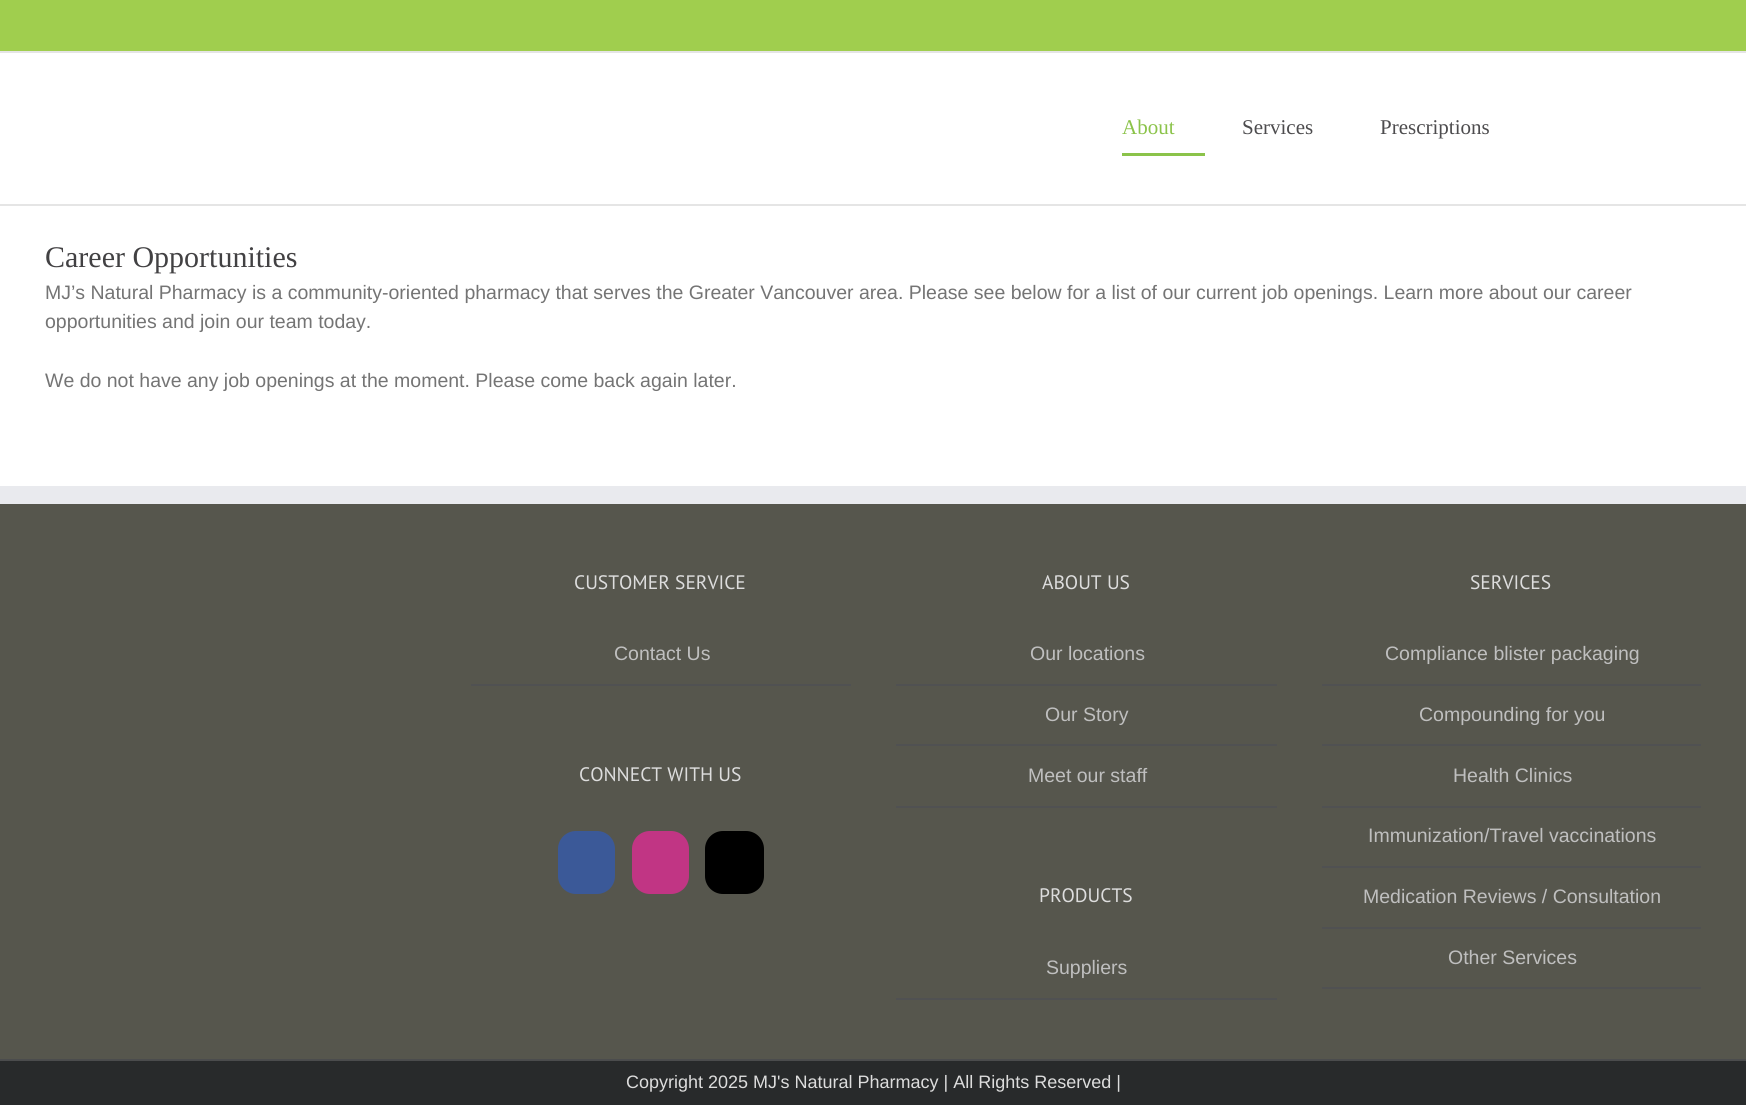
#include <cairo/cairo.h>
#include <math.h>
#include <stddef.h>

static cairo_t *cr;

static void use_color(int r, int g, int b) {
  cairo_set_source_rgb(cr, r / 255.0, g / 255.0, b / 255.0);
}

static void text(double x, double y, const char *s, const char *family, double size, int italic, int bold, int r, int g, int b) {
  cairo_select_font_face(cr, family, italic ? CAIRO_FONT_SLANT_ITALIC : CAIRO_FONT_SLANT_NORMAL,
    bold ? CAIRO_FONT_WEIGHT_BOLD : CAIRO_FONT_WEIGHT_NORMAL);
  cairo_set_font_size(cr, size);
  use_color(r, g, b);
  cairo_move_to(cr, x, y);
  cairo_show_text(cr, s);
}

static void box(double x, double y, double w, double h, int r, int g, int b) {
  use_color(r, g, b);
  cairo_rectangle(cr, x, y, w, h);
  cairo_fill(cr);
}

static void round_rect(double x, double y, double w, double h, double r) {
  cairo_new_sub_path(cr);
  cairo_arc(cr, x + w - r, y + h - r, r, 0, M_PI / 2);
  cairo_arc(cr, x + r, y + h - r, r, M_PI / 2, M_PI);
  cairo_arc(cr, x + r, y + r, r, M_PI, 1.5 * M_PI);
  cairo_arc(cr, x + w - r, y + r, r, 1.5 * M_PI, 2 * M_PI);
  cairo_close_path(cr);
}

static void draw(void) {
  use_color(255, 255, 255);
  cairo_paint(cr);
  box(0, 0, 1746, 51, 160, 206, 78);
  box(0, 51, 1746, 2, 229, 229, 229);
  box(0, 204, 1746, 2, 229, 229, 229);
  box(1122, 153, 83, 3, 139, 195, 74);
  box(0, 504, 1746, 555, 86, 86, 77);
  box(0, 486, 1746, 18, 233, 234, 238);
  box(471, 684, 380, 2, 80, 81, 82);
  use_color(59, 89, 152);
  round_rect(559, 832, 55, 61, 17);
  cairo_fill_preserve(cr);
  cairo_stroke(cr);
  use_color(193, 53, 132);
  round_rect(633, 832, 55, 61, 17);
  cairo_fill_preserve(cr);
  cairo_stroke(cr);
  use_color(0, 0, 0);
  round_rect(706, 832, 57, 61, 17);
  cairo_fill_preserve(cr);
  cairo_stroke(cr);
  box(896, 684, 381, 2, 80, 81, 82);
  box(896, 744, 381, 2, 80, 81, 82);
  box(896, 806, 381, 2, 80, 81, 82);
  box(896, 998, 381, 2, 80, 81, 82);
  box(1322, 684, 379, 2, 80, 81, 82);
  box(1322, 744, 379, 2, 80, 81, 82);
  box(1322, 806, 379, 2, 80, 81, 82);
  box(1322, 866, 379, 2, 80, 81, 82);
  box(1322, 927, 379, 2, 80, 81, 82);
  box(1322, 987, 379, 2, 80, 81, 82);
  box(0, 1061, 1746, 44, 40, 42, 43);
  box(0, 1059, 1746, 2, 75, 76, 77);
  text(1122, 134, "About", "Liberation Serif", 21, 0, 0, 139, 195, 74);
  text(1242, 134, "Services", "Liberation Serif", 21, 0, 0, 77, 76, 78);
  text(1380, 134, "Prescriptions", "Liberation Serif", 21, 0, 0, 77, 76, 78);
  text(45, 267, "Career Opportunities", "Liberation Serif", 30, 0, 0, 66, 65, 67);
  text(45, 299, "MJ’s Natural Pharmacy is a community-oriented pharmacy that serves the Greater Vancouver area. Please see below for a list of our current job openings. Learn more about our career", "Liberation Sans", 19.5, 0, 0, 116, 116, 116);
  text(45, 328, "opportunities and join our team today.", "Liberation Sans", 19.5, 0, 0, 116, 116, 116);
  text(45, 387, "We do not have any job openings at the moment. Please come back again later.", "Liberation Sans", 19.5, 0, 0, 116, 116, 116);
  text(574, 589, "CUSTOMER SERVICE", "PT Sans", 19.5, 0, 0, 221, 221, 221);
  text(614, 660, "Contact Us", "Liberation Sans", 19.5, 0, 0, 191, 191, 191);
  text(579, 781, "CONNECT WITH US", "PT Sans", 19.5, 0, 0, 221, 221, 221);
  text(1042, 589, "ABOUT US", "PT Sans", 19.5, 0, 0, 221, 221, 221);
  text(1030, 660, "Our locations", "Liberation Sans", 19.5, 0, 0, 191, 191, 191);
  text(1045, 721, "Our Story", "Liberation Sans", 19.5, 0, 0, 191, 191, 191);
  text(1028, 782, "Meet our staff", "Liberation Sans", 19.5, 0, 0, 191, 191, 191);
  text(1039, 902, "PRODUCTS", "PT Sans", 19.5, 0, 0, 221, 221, 221);
  text(1046, 974, "Suppliers", "Liberation Sans", 19.5, 0, 0, 191, 191, 191);
  text(1470, 589, "SERVICES", "PT Sans", 19.5, 0, 0, 221, 221, 221);
  text(1385, 660, "Compliance blister packaging", "Liberation Sans", 19.5, 0, 0, 191, 191, 191);
  text(1419, 721, "Compounding for you", "Liberation Sans", 19.5, 0, 0, 191, 191, 191);
  text(1453, 782, "Health Clinics", "Liberation Sans", 19.5, 0, 0, 191, 191, 191);
  text(1368, 842, "Immunization/Travel vaccinations", "Liberation Sans", 19.5, 0, 0, 191, 191, 191);
  text(1363, 903, "Medication Reviews / Consultation", "Liberation Sans", 19.5, 0, 0, 191, 191, 191);
  text(1448, 964, "Other Services", "Liberation Sans", 19.5, 0, 0, 191, 191, 191);
  text(626, 1088, "Copyright 2025 MJ's Natural Pharmacy | All Rights Reserved |", "Liberation Sans", 18, 0, 0, 221, 221, 221);
}

int main(void) {
  cairo_surface_t *surface = cairo_image_surface_create(CAIRO_FORMAT_RGB24, 1746, 1105);
  cr = cairo_create(surface);
  cairo_font_options_t *options = cairo_font_options_create();
  cairo_font_options_set_hint_metrics(options, CAIRO_HINT_METRICS_OFF);
  cairo_font_options_set_hint_style(options, CAIRO_HINT_STYLE_NONE);
  cairo_set_font_options(cr, options);
  cairo_set_miter_limit(cr, 4);
  draw();
  cairo_surface_write_to_png(surface, "out.png");
  cairo_font_options_destroy(options);
  cairo_destroy(cr);
  cairo_surface_destroy(surface);
  return 0;
}
